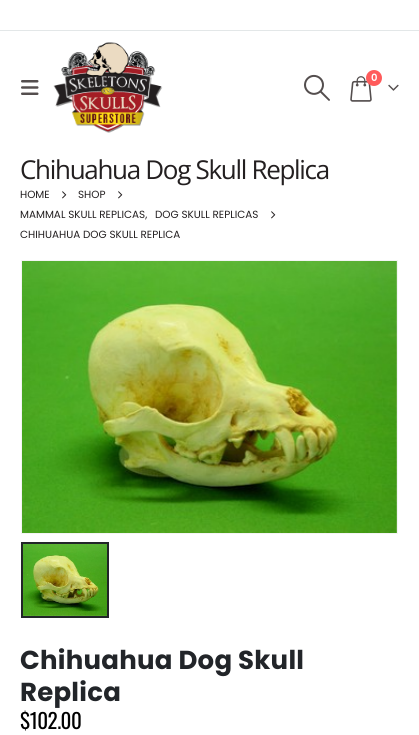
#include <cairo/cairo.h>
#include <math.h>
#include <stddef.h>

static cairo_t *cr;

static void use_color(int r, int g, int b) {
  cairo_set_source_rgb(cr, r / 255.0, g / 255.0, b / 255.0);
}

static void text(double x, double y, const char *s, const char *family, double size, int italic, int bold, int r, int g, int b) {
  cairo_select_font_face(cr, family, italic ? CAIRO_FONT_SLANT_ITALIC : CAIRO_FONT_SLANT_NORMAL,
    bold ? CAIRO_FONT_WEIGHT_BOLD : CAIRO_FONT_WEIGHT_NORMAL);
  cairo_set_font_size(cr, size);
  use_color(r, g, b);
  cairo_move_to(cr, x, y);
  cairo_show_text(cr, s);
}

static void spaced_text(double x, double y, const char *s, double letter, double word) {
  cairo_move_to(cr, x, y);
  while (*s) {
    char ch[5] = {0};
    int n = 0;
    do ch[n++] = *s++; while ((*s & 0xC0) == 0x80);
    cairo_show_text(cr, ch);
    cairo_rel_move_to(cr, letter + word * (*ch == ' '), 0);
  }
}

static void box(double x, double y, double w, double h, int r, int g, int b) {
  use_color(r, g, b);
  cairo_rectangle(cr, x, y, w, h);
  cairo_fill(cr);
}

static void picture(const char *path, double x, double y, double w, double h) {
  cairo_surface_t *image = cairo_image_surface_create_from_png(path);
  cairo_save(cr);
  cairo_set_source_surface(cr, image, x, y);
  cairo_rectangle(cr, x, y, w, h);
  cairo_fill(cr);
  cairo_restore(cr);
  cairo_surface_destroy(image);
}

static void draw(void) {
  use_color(255, 255, 255);
  cairo_paint(cr);
  box(0, 30, 419, 1, 227, 231, 232);
  picture("img_01.png", 21, 80, 18, 15);
  picture("img_02.png", 53, 42, 110, 91);
  picture("img_03.png", 304, 74, 26, 27);
  picture("img_04.png", 350, 76, 22, 26);
  use_color(255, 91, 91);
  cairo_arc(cr, 374, 78, 8, 0, 2 * M_PI);
  cairo_fill(cr);
  picture("img_05.png", 388, 84, 11, 7);
  picture("img_06.png", 62, 191, 5, 8);
  picture("img_06.png", 118, 191, 5, 8);
  picture("img_06.png", 271, 211, 5, 8);
  cairo_rectangle(cr, 21.5, 260.5, 376, 273);
  use_color(244, 244, 244);
  cairo_set_line_width(cr, 1);
  cairo_stroke(cr);
  picture("img_07.png", 22, 261, 375, 272);
  cairo_rectangle(cr, 22, 543, 86, 74);
  use_color(34, 37, 41);
  cairo_set_line_width(cr, 2);
  cairo_stroke(cr);
  picture("img_08.png", 23, 544, 84, 72);
  text(371, 81, "0", "Poppins SemiBold", 10, 0, 0, 255, 255, 255);
  cairo_select_font_face(cr, "Open Sans", CAIRO_FONT_SLANT_NORMAL, CAIRO_FONT_WEIGHT_NORMAL);
  cairo_set_font_size(cr, 26);
  use_color(35, 31, 32);
  spaced_text(20, 179, "Chihuahua Dog Skull Replica", -1.3, 0);
  text(20, 198, "HOME", "Poppins", 10.4, 0, 0, 35, 31, 32);
  text(78, 198, "SHOP", "Poppins", 10.4, 0, 0, 35, 31, 32);
  text(20, 218, "MAMMAL SKULL REPLICAS,", "Poppins", 10.4, 0, 0, 35, 31, 32);
  text(155, 218, "DOG SKULL REPLICAS", "Poppins", 10.4, 0, 0, 35, 31, 32);
  text(20, 238, "CHIHUAHUA DOG SKULL REPLICA", "Poppins", 10.4, 0, 0, 35, 31, 32);
  cairo_select_font_face(cr, "Poppins", CAIRO_FONT_SLANT_NORMAL, CAIRO_FONT_WEIGHT_BOLD);
  cairo_set_font_size(cr, 26);
  use_color(34, 37, 41);
  spaced_text(20, 669, "Chihuahua Dog Skull", 0.25, 0);
  spaced_text(20, 701, "Replica", 0.25, 0);
  cairo_select_font_face(cr, "Oswald", CAIRO_FONT_SLANT_NORMAL, CAIRO_FONT_WEIGHT_NORMAL);
  cairo_set_font_size(cr, 21);
  use_color(0, 0, 0);
  spaced_text(20, 729, "$102.00", -0.5, 0);
}

int main(void) {
  cairo_surface_t *surface = cairo_image_surface_create(CAIRO_FORMAT_RGB24, 419, 735);
  cr = cairo_create(surface);
  cairo_font_options_t *options = cairo_font_options_create();
  cairo_font_options_set_hint_metrics(options, CAIRO_HINT_METRICS_OFF);
  cairo_font_options_set_hint_style(options, CAIRO_HINT_STYLE_NONE);
  cairo_set_font_options(cr, options);
  cairo_set_miter_limit(cr, 4);
  draw();
  cairo_surface_write_to_png(surface, "out.png");
  cairo_font_options_destroy(options);
  cairo_destroy(cr);
  cairo_surface_destroy(surface);
  return 0;
}
